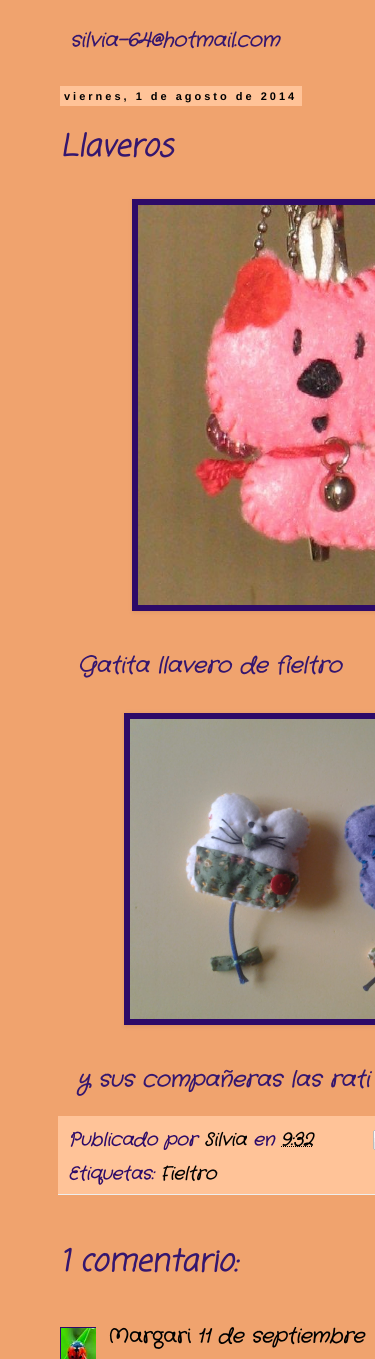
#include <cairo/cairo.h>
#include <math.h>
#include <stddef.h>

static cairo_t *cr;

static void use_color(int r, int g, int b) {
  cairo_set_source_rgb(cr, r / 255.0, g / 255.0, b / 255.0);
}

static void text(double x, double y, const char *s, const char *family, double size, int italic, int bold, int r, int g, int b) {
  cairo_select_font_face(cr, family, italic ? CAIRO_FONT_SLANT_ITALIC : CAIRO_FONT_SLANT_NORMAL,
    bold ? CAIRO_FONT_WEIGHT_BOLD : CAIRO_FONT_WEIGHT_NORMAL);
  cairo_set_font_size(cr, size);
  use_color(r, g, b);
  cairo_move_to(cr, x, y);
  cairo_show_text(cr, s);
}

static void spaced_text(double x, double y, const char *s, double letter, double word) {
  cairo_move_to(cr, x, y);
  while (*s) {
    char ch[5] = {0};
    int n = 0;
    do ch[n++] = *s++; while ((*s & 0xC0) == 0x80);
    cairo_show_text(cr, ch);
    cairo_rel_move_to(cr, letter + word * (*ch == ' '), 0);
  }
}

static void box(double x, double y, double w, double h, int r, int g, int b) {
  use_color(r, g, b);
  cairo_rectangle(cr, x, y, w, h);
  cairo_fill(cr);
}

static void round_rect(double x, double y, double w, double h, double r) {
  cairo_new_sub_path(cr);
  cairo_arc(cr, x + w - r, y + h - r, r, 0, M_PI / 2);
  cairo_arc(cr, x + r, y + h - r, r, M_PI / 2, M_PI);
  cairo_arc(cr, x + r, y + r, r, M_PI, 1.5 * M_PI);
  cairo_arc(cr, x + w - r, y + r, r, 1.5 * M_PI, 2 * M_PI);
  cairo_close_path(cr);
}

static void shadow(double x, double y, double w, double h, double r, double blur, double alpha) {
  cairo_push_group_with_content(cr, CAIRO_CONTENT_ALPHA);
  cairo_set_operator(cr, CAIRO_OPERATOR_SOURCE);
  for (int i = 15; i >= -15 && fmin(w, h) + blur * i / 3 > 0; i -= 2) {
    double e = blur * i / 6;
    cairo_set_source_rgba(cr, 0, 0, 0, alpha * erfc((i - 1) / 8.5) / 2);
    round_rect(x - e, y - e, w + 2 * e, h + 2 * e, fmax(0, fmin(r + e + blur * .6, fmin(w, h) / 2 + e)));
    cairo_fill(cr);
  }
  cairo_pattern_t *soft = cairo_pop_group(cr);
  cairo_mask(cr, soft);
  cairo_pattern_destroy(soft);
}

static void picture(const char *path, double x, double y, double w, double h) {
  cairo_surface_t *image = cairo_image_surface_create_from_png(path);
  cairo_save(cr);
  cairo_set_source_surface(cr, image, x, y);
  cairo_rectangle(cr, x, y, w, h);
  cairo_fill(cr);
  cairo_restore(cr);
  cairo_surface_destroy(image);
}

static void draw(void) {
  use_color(240, 163, 110);
  cairo_paint(cr);
  box(60, 86, 242, 20, 255, 195, 152);
  use_color(0, 0, 0);
  shadow(133, 200, 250, 412, 0, 2.5, 0.1);
  box(132, 199, 243, 412, 45, 10, 104);
  picture("img_01.png", 138, 205, 237, 400);
  use_color(0, 0, 0);
  shadow(125, 714, 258, 312, 0, 2.5, 0.1);
  box(124, 713, 251, 312, 45, 10, 104);
  picture("img_02.png", 130, 719, 245, 300);
  box(58, 1116, 317, 78, 255, 195, 152);
  box(58, 1194, 317, 1, 238, 238, 238);
  cairo_new_path(cr);
  cairo_move_to(cr, 281, 1146.5);
  cairo_line_to(cr, 313, 1146.5);
  use_color(0, 0, 0);
  cairo_set_line_width(cr, 1);
  cairo_set_dash(cr, (double[]){1, 1}, 2, 0);
  cairo_stroke(cr);
  picture("img_03.png", 373, 1130, 2, 20);
  cairo_save(cr);
  cairo_rectangle(cr, 60, 1327, 36, 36);
  cairo_clip(cr);
  cairo_rectangle(cr, 60.5, 1327.5, 37, 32);
  use_color(45, 10, 104);
  cairo_set_dash(cr, NULL, 0, 0);
  cairo_stroke(cr);
  cairo_restore(cr);
  picture("img_04.png", 61, 1328, 35, 31);
  text(70, 46, "silvia-64@hotmail.com", "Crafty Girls", 20, 1, 1, 53, 22, 110);
  cairo_select_font_face(cr, "Liberation Sans", CAIRO_FONT_SLANT_NORMAL, CAIRO_FONT_WEIGHT_BOLD);
  cairo_set_font_size(cr, 11);
  use_color(0, 0, 0);
  spaced_text(64, 100, "viernes, 1 de agosto de 2014", 3, 0);
  text(60, 156, "Llaveros", "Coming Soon", 30, 1, 1, 53, 22, 110);
  text(77, 672, "Gatita llavero de fieltro", "Crafty Girls", 22, 1, 1, 53, 22, 110);
  text(77, 1086, "y sus compañeras las rati", "Crafty Girls", 22, 1, 1, 53, 22, 110);
  text(68, 1145, "Publicado por", "Crafty Girls", 18, 1, 1, 45, 10, 104);
  text(204, 1145, "Silvia", "Crafty Girls", 18, 1, 1, 0, 0, 0);
  text(253, 1145, "en", "Crafty Girls", 18, 1, 1, 45, 10, 104);
  text(281, 1145, "9:32", "Crafty Girls", 18, 1, 1, 0, 0, 0);
  text(68, 1179, "Etiquetas:", "Crafty Girls", 18, 1, 1, 45, 10, 104);
  text(160, 1179, "Fieltro", "Crafty Girls", 18, 1, 1, 0, 0, 0);
  text(60, 1271, "1 comentario:", "Coming Soon", 30, 1, 1, 53, 22, 110);
  text(108, 1342, "Margari", "Crafty Girls", 20, 0, 1, 0, 0, 0);
  text(197, 1342, "11 de septiembre", "Crafty Girls", 20, 1, 1, 0, 0, 0);
}

int main(void) {
  cairo_surface_t *surface = cairo_image_surface_create(CAIRO_FORMAT_RGB24, 375, 1359);
  cr = cairo_create(surface);
  cairo_font_options_t *options = cairo_font_options_create();
  cairo_font_options_set_hint_metrics(options, CAIRO_HINT_METRICS_OFF);
  cairo_font_options_set_hint_style(options, CAIRO_HINT_STYLE_NONE);
  cairo_set_font_options(cr, options);
  cairo_set_miter_limit(cr, 4);
  draw();
  cairo_surface_write_to_png(surface, "out.png");
  cairo_font_options_destroy(options);
  cairo_destroy(cr);
  cairo_surface_destroy(surface);
  return 0;
}
